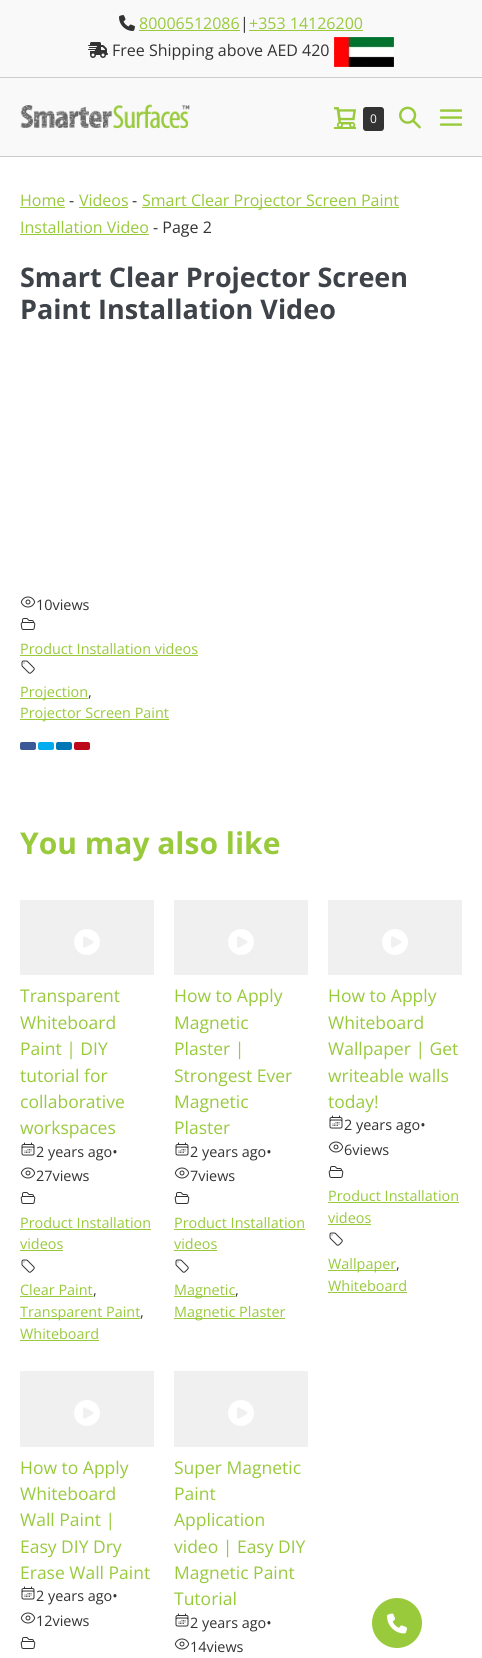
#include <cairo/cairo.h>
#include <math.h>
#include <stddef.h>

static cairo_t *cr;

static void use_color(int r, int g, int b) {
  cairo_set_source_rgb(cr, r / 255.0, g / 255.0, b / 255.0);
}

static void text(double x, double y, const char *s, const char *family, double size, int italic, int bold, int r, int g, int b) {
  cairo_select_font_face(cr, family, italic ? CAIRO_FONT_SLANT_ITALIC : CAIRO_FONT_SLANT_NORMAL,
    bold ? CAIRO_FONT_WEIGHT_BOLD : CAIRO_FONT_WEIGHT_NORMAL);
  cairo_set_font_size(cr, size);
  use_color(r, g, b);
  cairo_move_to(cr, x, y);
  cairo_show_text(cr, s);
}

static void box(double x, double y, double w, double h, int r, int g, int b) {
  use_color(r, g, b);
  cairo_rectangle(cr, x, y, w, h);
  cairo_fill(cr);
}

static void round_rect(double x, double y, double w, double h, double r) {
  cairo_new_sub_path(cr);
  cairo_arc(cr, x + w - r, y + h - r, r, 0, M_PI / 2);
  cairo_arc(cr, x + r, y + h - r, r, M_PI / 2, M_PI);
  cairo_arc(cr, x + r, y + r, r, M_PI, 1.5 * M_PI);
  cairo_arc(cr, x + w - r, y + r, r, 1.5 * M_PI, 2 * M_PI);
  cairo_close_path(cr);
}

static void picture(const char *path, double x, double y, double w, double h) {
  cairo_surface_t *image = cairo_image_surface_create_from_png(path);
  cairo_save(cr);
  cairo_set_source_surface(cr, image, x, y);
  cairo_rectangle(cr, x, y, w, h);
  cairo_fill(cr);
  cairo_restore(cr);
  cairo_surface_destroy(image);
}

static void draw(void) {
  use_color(255, 255, 255);
  cairo_paint(cr);
  box(0, 0, 482, 77, 249, 249, 249);
  picture("img_01.png", 119, 15, 16, 16);
  box(139, 30, 101, 1, 152, 202, 60);
  box(249, 30, 114, 1, 152, 202, 60);
  picture("img_02.png", 88, 42, 20, 16);
  picture("img_03.png", 334, 37, 60, 30);
  box(0, 78, 482, 78, 249, 249, 249);
  box(0, 77, 482, 1, 204, 204, 204);
  box(0, 156, 482, 1, 204, 204, 204);
  picture("img_04.png", 20, 104, 170, 25);
  picture("img_05.png", 334, 107, 22, 20);
  use_color(51, 51, 51);
  round_rect(363, 107, 21, 24, 3);
  cairo_fill(cr);
  box(334, 127, 22, 2, 152, 202, 60);
  picture("img_06.png", 399, 106, 22, 23);
  picture("img_07.png", 440, 109, 23, 17);
  box(20, 207, 45, 1, 152, 202, 60);
  box(79, 207, 49, 1, 152, 202, 60);
  box(142, 207, 257, 1, 152, 202, 60);
  box(20, 234, 129, 1, 152, 202, 60);
  picture("img_08.png", 20, 596, 16, 12);
  picture("img_09.png", 20, 618, 16, 12);
  box(20, 655, 178, 1, 152, 202, 60);
  picture("img_10.png", 21, 660, 14, 14);
  box(20, 698, 68, 1, 152, 202, 60);
  box(20, 719, 149, 1, 152, 202, 60);
  use_color(59, 89, 151);
  round_rect(20, 742, 16, 8, 2);
  cairo_fill(cr);
  use_color(0, 172, 237);
  round_rect(38, 742, 16, 8, 2);
  cairo_fill(cr);
  use_color(0, 119, 181);
  round_rect(56, 742, 16, 8, 2);
  cairo_fill(cr);
  use_color(189, 8, 28);
  round_rect(74, 742, 16, 8, 2);
  cairo_fill(cr);
  box(20, 900, 134, 75, 240, 240, 240);
  picture("img_11.png", 74, 929, 26, 26);
  picture("img_12.png", 21, 1142, 14, 14);
  picture("img_08.png", 20, 1167, 16, 12);
  picture("img_09.png", 20, 1192, 16, 12);
  box(20, 1229, 131, 1, 152, 202, 60);
  box(20, 1250, 43, 1, 152, 202, 60);
  picture("img_10.png", 21, 1259, 14, 14);
  box(20, 1296, 73, 1, 152, 202, 60);
  box(20, 1318, 120, 1, 152, 202, 60);
  box(20, 1340, 79, 1, 152, 202, 60);
  box(174, 900, 134, 75, 240, 240, 240);
  picture("img_11.png", 228, 929, 26, 26);
  picture("img_12.png", 175, 1142, 14, 14);
  picture("img_08.png", 174, 1167, 16, 12);
  picture("img_09.png", 174, 1192, 16, 12);
  box(174, 1229, 131, 1, 152, 202, 60);
  box(174, 1250, 43, 1, 152, 202, 60);
  picture("img_10.png", 175, 1259, 14, 14);
  box(174, 1296, 61, 1, 152, 202, 60);
  box(174, 1318, 111, 1, 152, 202, 60);
  box(328, 900, 134, 75, 240, 240, 240);
  picture("img_11.png", 382, 929, 26, 26);
  picture("img_12.png", 329, 1115, 14, 14);
  picture("img_08.png", 328, 1141, 16, 12);
  picture("img_09.png", 328, 1166, 16, 12);
  box(328, 1202, 131, 1, 152, 202, 60);
  box(328, 1224, 43, 1, 152, 202, 60);
  picture("img_10.png", 329, 1232, 14, 14);
  box(328, 1270, 68, 1, 152, 202, 60);
  box(328, 1292, 79, 1, 152, 202, 60);
  box(20, 1371, 134, 76, 240, 240, 240);
  picture("img_11.png", 74, 1400, 26, 26);
  picture("img_12.png", 21, 1586, 14, 14);
  picture("img_08.png", 20, 1612, 16, 12);
  picture("img_09.png", 20, 1637, 16, 12);
  box(174, 1371, 134, 76, 240, 240, 240);
  picture("img_11.png", 228, 1400, 26, 26);
  picture("img_12.png", 175, 1613, 14, 14);
  picture("img_08.png", 174, 1638, 16, 12);
  use_color(152, 202, 60);
  cairo_arc(cr, 397, 1623, 25, 0, 2 * M_PI);
  cairo_fill(cr);
  picture("img_13.png", 387, 1613, 20, 21);
  text(139, 29, "80006512086", "Open Sans", 16, 0, 0, 152, 202, 60);
  text(240, 29, "|", "Open Sans", 16, 0, 0, 51, 51, 51);
  text(249, 29, "+353 14126200", "Open Sans", 16, 0, 0, 152, 202, 60);
  text(112, 56, "Free Shipping above AED 420", "Open Sans", 16, 0, 0, 51, 51, 51);
  text(370, 123, "0", "Open Sans", 12, 0, 0, 255, 255, 255);
  text(20, 206, "Home", "Open Sans", 16, 0, 0, 152, 202, 60);
  text(69, 206, "-", "Open Sans", 16, 0, 0, 51, 51, 51);
  text(79, 206, "Videos", "Open Sans", 16, 0, 0, 152, 202, 60);
  text(132, 206, "-", "Open Sans", 16, 0, 0, 51, 51, 51);
  text(142, 206, "Smart Clear Projector Screen Paint", "Open Sans", 16, 0, 0, 152, 202, 60);
  text(20, 233, "Installation Video", "Open Sans", 16, 0, 0, 152, 202, 60);
  text(153, 233, "- Page 2", "Open Sans", 16, 0, 0, 51, 51, 51);
  text(20, 287, "Smart Clear Projector Screen", "Open Sans", 27, 0, 1, 62, 67, 73);
  text(20, 319, "Paint Installation Video", "Open Sans", 27, 0, 1, 62, 67, 73);
  text(36, 610, "10views", "Open Sans", 14.4, 0, 0, 51, 51, 51);
  text(20, 654, "Product Installation videos", "Open Sans", 14.4, 0, 0, 152, 202, 60);
  text(20, 697, "Projection", "Open Sans", 14.4, 0, 0, 152, 202, 60);
  text(88, 697, ",", "Open Sans", 14.4, 0, 0, 51, 51, 51);
  text(20, 718, "Projector Screen Paint", "Open Sans", 14.4, 0, 0, 152, 202, 60);
  text(20, 854, "You may also like", "Open Sans", 30, 0, 1, 152, 202, 60);
  text(20, 1002, "Transparent", "Open Sans", 17.5, 0, 0, 152, 202, 60);
  text(20, 1029, "Whiteboard", "Open Sans", 17.5, 0, 0, 152, 202, 60);
  text(20, 1055, "Paint | DIY", "Open Sans", 17.5, 0, 0, 152, 202, 60);
  text(20, 1082, "tutorial for", "Open Sans", 17.5, 0, 0, 152, 202, 60);
  text(20, 1108, "collaborative", "Open Sans", 17.5, 0, 0, 152, 202, 60);
  text(20, 1134, "workspaces", "Open Sans", 17.5, 0, 0, 152, 202, 60);
  text(36, 1157, "2 years ago•", "Open Sans", 14.4, 0, 0, 51, 51, 51);
  text(36, 1181, "27views", "Open Sans", 14.4, 0, 0, 51, 51, 51);
  text(20, 1228, "Product Installation", "Open Sans", 14.4, 0, 0, 152, 202, 60);
  text(20, 1249, "videos", "Open Sans", 14.4, 0, 0, 152, 202, 60);
  text(20, 1295, "Clear Paint", "Open Sans", 14.4, 0, 0, 152, 202, 60);
  text(93, 1295, ",", "Open Sans", 14.4, 0, 0, 51, 51, 51);
  text(20, 1317, "Transparent Paint", "Open Sans", 14.4, 0, 0, 152, 202, 60);
  text(140, 1317, ",", "Open Sans", 14.4, 0, 0, 51, 51, 51);
  text(20, 1339, "Whiteboard", "Open Sans", 14.4, 0, 0, 152, 202, 60);
  text(174, 1002, "How to Apply", "Open Sans", 17.5, 0, 0, 152, 202, 60);
  text(174, 1029, "Magnetic", "Open Sans", 17.5, 0, 0, 152, 202, 60);
  text(174, 1055, "Plaster |", "Open Sans", 17.5, 0, 0, 152, 202, 60);
  text(174, 1082, "Strongest Ever", "Open Sans", 17.5, 0, 0, 152, 202, 60);
  text(174, 1108, "Magnetic", "Open Sans", 17.5, 0, 0, 152, 202, 60);
  text(174, 1134, "Plaster", "Open Sans", 17.5, 0, 0, 152, 202, 60);
  text(190, 1157, "2 years ago•", "Open Sans", 14.4, 0, 0, 51, 51, 51);
  text(190, 1181, "7views", "Open Sans", 14.4, 0, 0, 51, 51, 51);
  text(174, 1228, "Product Installation", "Open Sans", 14.4, 0, 0, 152, 202, 60);
  text(174, 1249, "videos", "Open Sans", 14.4, 0, 0, 152, 202, 60);
  text(174, 1295, "Magnetic", "Open Sans", 14.4, 0, 0, 152, 202, 60);
  text(235, 1295, ",", "Open Sans", 14.4, 0, 0, 51, 51, 51);
  text(174, 1317, "Magnetic Plaster", "Open Sans", 14.4, 0, 0, 152, 202, 60);
  text(328, 1002, "How to Apply", "Open Sans", 17.5, 0, 0, 152, 202, 60);
  text(328, 1029, "Whiteboard", "Open Sans", 17.5, 0, 0, 152, 202, 60);
  text(328, 1055, "Wallpaper | Get", "Open Sans", 17.5, 0, 0, 152, 202, 60);
  text(328, 1082, "writeable walls", "Open Sans", 17.5, 0, 0, 152, 202, 60);
  text(328, 1108, "today!", "Open Sans", 17.5, 0, 0, 152, 202, 60);
  text(344, 1130, "2 years ago•", "Open Sans", 14.4, 0, 0, 51, 51, 51);
  text(344, 1155, "6views", "Open Sans", 14.4, 0, 0, 51, 51, 51);
  text(328, 1201, "Product Installation", "Open Sans", 14.4, 0, 0, 152, 202, 60);
  text(328, 1223, "videos", "Open Sans", 14.4, 0, 0, 152, 202, 60);
  text(328, 1269, "Wallpaper", "Open Sans", 14.4, 0, 0, 152, 202, 60);
  text(396, 1269, ",", "Open Sans", 14.4, 0, 0, 51, 51, 51);
  text(328, 1291, "Whiteboard", "Open Sans", 14.4, 0, 0, 152, 202, 60);
  text(20, 1474, "How to Apply", "Open Sans", 17.5, 0, 0, 152, 202, 60);
  text(20, 1500, "Whiteboard", "Open Sans", 17.5, 0, 0, 152, 202, 60);
  text(20, 1526, "Wall Paint |", "Open Sans", 17.5, 0, 0, 152, 202, 60);
  text(20, 1553, "Easy DIY Dry", "Open Sans", 17.5, 0, 0, 152, 202, 60);
  text(20, 1579, "Erase Wall Paint", "Open Sans", 17.5, 0, 0, 152, 202, 60);
  text(36, 1601, "2 years ago•", "Open Sans", 14.4, 0, 0, 51, 51, 51);
  text(36, 1626, "12views", "Open Sans", 14.4, 0, 0, 51, 51, 51);
  text(174, 1474, "Super Magnetic", "Open Sans", 17.5, 0, 0, 152, 202, 60);
  text(174, 1500, "Paint", "Open Sans", 17.5, 0, 0, 152, 202, 60);
  text(174, 1526, "Application", "Open Sans", 17.5, 0, 0, 152, 202, 60);
  text(174, 1553, "video | Easy DIY", "Open Sans", 17.5, 0, 0, 152, 202, 60);
  text(174, 1579, "Magnetic Paint", "Open Sans", 17.5, 0, 0, 152, 202, 60);
  text(174, 1605, "Tutorial", "Open Sans", 17.5, 0, 0, 152, 202, 60);
  text(190, 1628, "2 years ago•", "Open Sans", 14.4, 0, 0, 51, 51, 51);
  text(190, 1652, "14views", "Open Sans", 14.4, 0, 0, 51, 51, 51);
}

int main(void) {
  cairo_surface_t *surface = cairo_image_surface_create(CAIRO_FORMAT_RGB24, 482, 1658);
  cr = cairo_create(surface);
  cairo_font_options_t *options = cairo_font_options_create();
  cairo_font_options_set_hint_metrics(options, CAIRO_HINT_METRICS_OFF);
  cairo_font_options_set_hint_style(options, CAIRO_HINT_STYLE_NONE);
  cairo_set_font_options(cr, options);
  cairo_set_miter_limit(cr, 4);
  draw();
  cairo_surface_write_to_png(surface, "out.png");
  cairo_font_options_destroy(options);
  cairo_destroy(cr);
  cairo_surface_destroy(surface);
  return 0;
}
